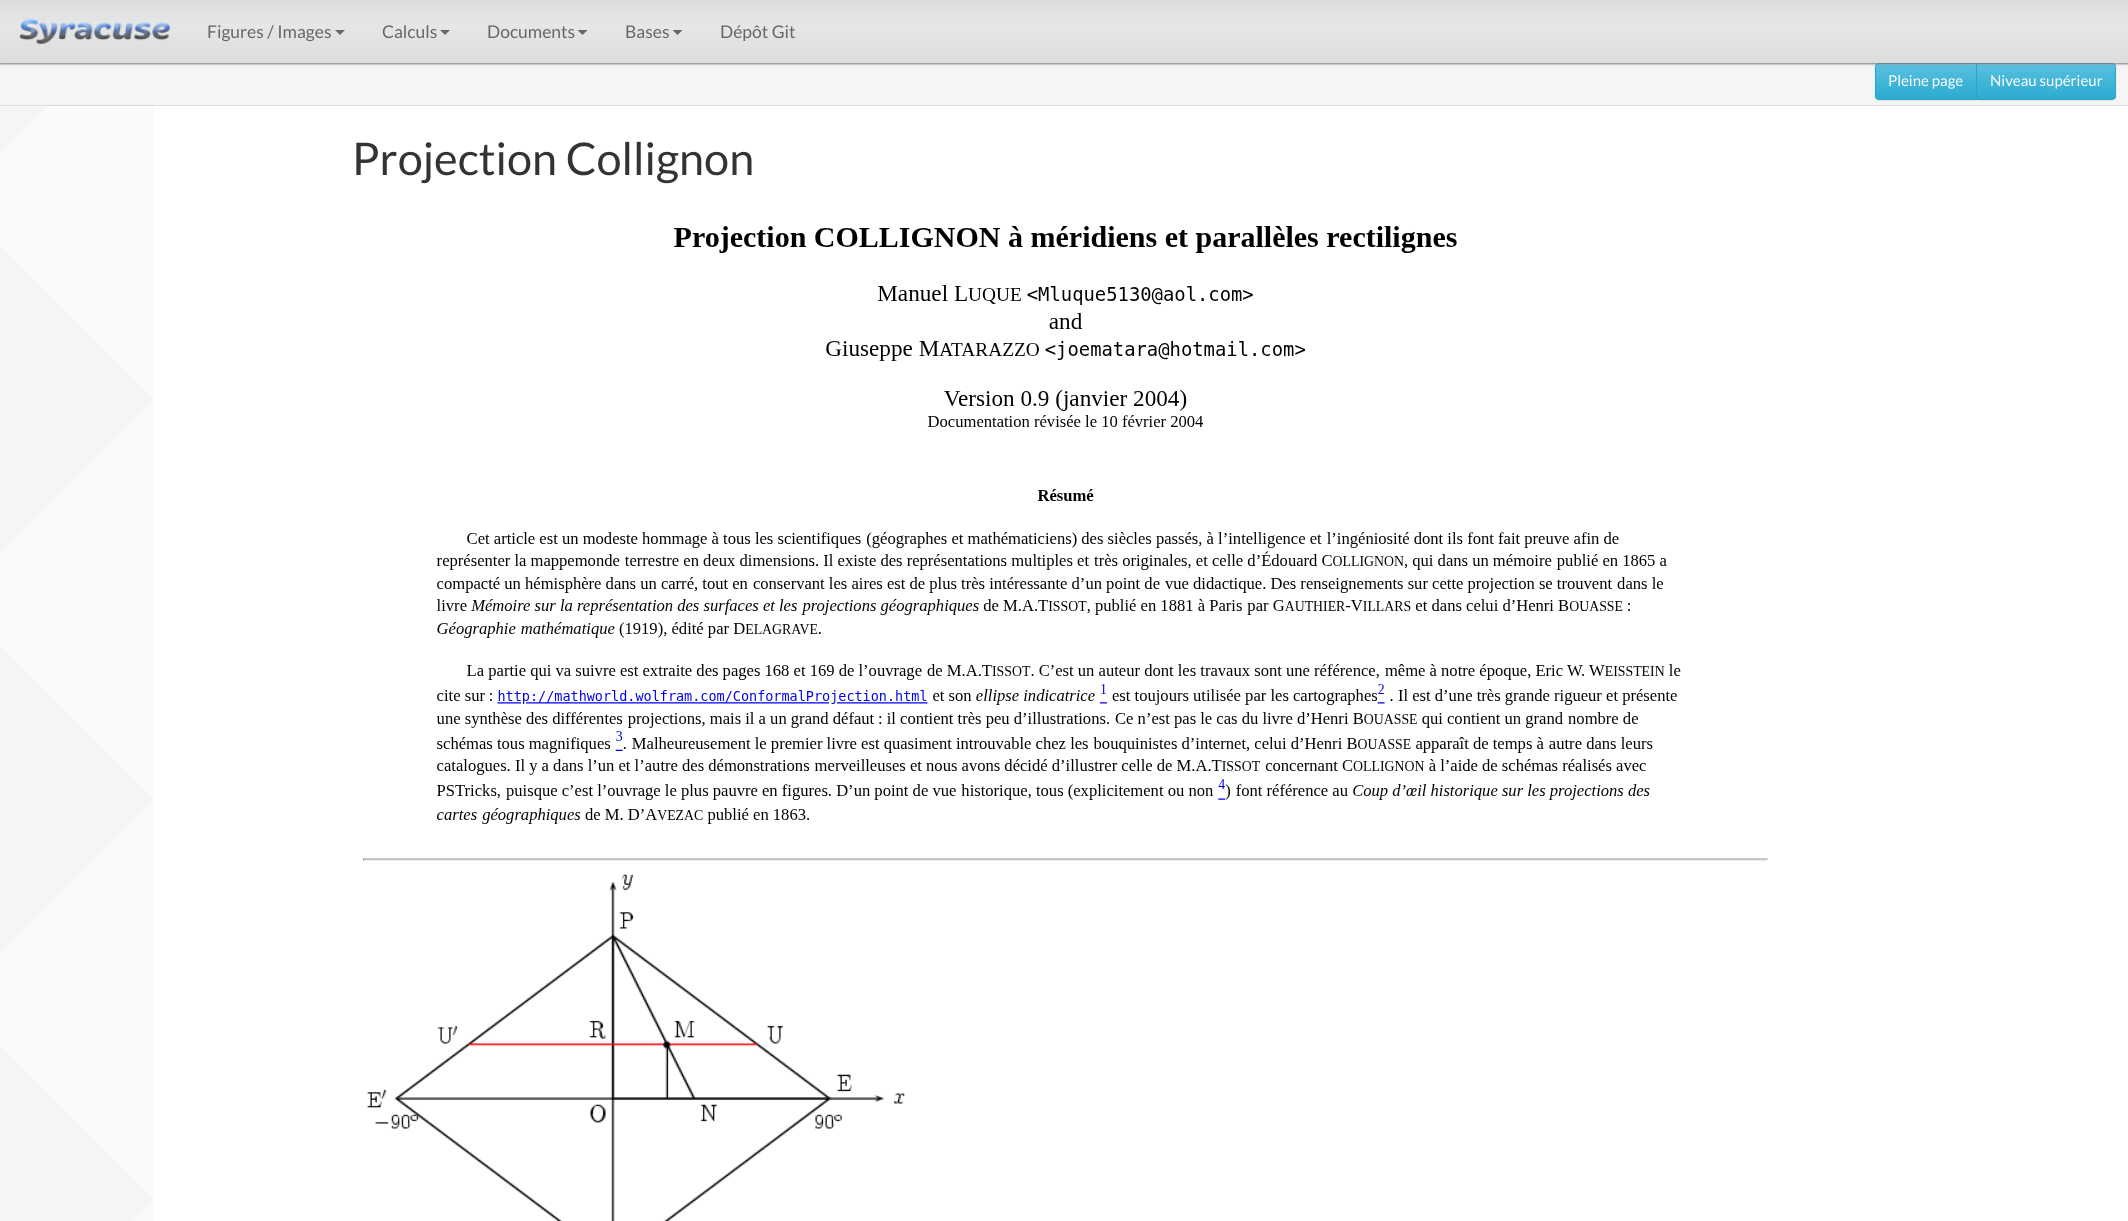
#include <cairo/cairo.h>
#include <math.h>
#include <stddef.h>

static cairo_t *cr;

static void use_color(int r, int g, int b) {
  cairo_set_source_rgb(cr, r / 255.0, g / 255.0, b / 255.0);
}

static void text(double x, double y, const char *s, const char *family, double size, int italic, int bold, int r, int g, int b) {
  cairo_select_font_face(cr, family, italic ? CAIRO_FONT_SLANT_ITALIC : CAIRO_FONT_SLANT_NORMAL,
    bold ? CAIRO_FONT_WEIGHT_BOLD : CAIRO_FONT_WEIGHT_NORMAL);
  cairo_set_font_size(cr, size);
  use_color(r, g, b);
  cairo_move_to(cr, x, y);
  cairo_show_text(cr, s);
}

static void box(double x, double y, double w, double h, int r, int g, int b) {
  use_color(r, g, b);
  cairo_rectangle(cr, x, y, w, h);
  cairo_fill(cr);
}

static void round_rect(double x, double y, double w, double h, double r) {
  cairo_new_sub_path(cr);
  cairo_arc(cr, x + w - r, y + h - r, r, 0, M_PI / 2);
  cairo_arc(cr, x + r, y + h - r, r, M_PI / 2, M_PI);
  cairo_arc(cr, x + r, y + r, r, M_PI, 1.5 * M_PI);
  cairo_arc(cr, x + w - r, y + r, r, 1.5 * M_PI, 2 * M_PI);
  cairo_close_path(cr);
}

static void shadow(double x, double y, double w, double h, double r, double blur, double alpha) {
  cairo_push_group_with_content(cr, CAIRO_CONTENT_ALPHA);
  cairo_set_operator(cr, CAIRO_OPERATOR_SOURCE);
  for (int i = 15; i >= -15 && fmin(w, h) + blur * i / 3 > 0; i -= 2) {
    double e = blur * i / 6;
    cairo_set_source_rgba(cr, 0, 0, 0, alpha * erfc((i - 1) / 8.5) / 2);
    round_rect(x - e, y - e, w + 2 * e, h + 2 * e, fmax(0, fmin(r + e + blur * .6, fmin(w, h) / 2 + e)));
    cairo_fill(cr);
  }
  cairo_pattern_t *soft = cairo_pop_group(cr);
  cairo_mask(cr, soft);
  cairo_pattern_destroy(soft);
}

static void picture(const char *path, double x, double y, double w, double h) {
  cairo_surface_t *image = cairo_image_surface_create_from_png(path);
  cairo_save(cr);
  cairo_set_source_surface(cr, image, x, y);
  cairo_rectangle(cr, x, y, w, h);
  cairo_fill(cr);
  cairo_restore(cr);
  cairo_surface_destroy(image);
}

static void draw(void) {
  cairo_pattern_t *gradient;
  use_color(255, 255, 255);
  cairo_paint(cr);
  picture("img_01.png", 0, 106, 154, 1115);
  box(0, 63, 2128, 42, 245, 245, 245);
  use_color(0, 0, 0);
  shadow(1875, 64, 103, 37, 4, 0.5, 0.07);
  cairo_save(cr);
  cairo_new_path(cr);
  cairo_move_to(cr, 1879, 63);
  cairo_line_to(cr, 1978, 63);
  cairo_line_to(cr, 1978, 100);
  cairo_line_to(cr, 1879, 100);
  cairo_curve_to(cr, 1877, 100, 1875, 98, 1875, 96);
  cairo_line_to(cr, 1875, 67);
  cairo_curve_to(cr, 1875, 65, 1877, 63, 1879, 63);
  cairo_close_path(cr);
  cairo_clip(cr);
  gradient = cairo_pattern_create_linear(1926, 64, 1926, 99);
  cairo_pattern_add_color_stop_rgba(gradient, 0, 0.357, 0.753, 0.871, 1);
  cairo_pattern_add_color_stop_rgba(gradient, 1, 0.165, 0.671, 0.824, 1);
  cairo_set_source(cr, gradient);
  cairo_pattern_destroy(gradient);
  cairo_rectangle(cr, 1875, 64, 101, 35);
  cairo_fill(cr);
  cairo_restore(cr);
  use_color(115, 201, 227);
  cairo_new_path(cr);
  cairo_move_to(cr, 1879, 65);
  cairo_line_to(cr, 1976, 65);
  cairo_line_to(cr, 1976, 64);
  cairo_line_to(cr, 1878, 64);
  cairo_curve_to(cr, 1877, 64, 1876, 65, 1876, 66);
  cairo_line_to(cr, 1876, 68);
  cairo_curve_to(cr, 1876, 66, 1877, 65, 1879, 65);
  cairo_close_path(cr);
  cairo_fill(cr);
  cairo_new_path(cr);
  cairo_move_to(cr, 1879, 63.5);
  cairo_line_to(cr, 1977.5, 63.5);
  cairo_line_to(cr, 1977.5, 99.5);
  cairo_line_to(cr, 1879, 99.5);
  cairo_curve_to(cr, 1877, 99.5, 1875.5, 98, 1875.5, 96);
  cairo_line_to(cr, 1875.5, 67);
  cairo_curve_to(cr, 1875.5, 65, 1877, 63.5, 1879, 63.5);
  cairo_close_path(cr);
  use_color(40, 164, 201);
  cairo_set_line_width(cr, 1);
  cairo_stroke(cr);
  use_color(0, 0, 0);
  shadow(1976, 64, 140, 37, 4, 0.5, 0.07);
  cairo_save(cr);
  cairo_new_path(cr);
  cairo_move_to(cr, 1976, 63);
  cairo_line_to(cr, 2112, 63);
  cairo_curve_to(cr, 2114, 63, 2116, 65, 2116, 67);
  cairo_line_to(cr, 2116, 96);
  cairo_curve_to(cr, 2116, 98, 2114, 100, 2112, 100);
  cairo_line_to(cr, 1976, 100);
  cairo_close_path(cr);
  cairo_clip(cr);
  gradient = cairo_pattern_create_linear(2046, 64, 2046, 99);
  cairo_pattern_add_color_stop_rgba(gradient, 0, 0.357, 0.753, 0.871, 1);
  cairo_pattern_add_color_stop_rgba(gradient, 1, 0.165, 0.671, 0.824, 1);
  cairo_set_source(cr, gradient);
  cairo_pattern_destroy(gradient);
  cairo_rectangle(cr, 1977, 64, 139, 35);
  cairo_fill(cr);
  cairo_restore(cr);
  use_color(115, 201, 227);
  cairo_new_path(cr);
  cairo_move_to(cr, 1978, 65);
  cairo_line_to(cr, 2112, 65);
  cairo_curve_to(cr, 2114, 65, 2115, 66, 2115, 68);
  cairo_line_to(cr, 2115, 66);
  cairo_curve_to(cr, 2115, 65, 2114, 64, 2112, 64);
  cairo_line_to(cr, 1978, 64);
  cairo_close_path(cr);
  cairo_fill(cr);
  cairo_new_path(cr);
  cairo_move_to(cr, 1976.5, 63.5);
  cairo_line_to(cr, 2112, 63.5);
  cairo_curve_to(cr, 2114, 63.5, 2115.5, 65, 2115.5, 67);
  cairo_line_to(cr, 2115.5, 96);
  cairo_curve_to(cr, 2115.5, 98, 2114, 99.5, 2112, 99.5);
  cairo_line_to(cr, 1976.5, 99.5);
  cairo_close_path(cr);
  use_color(40, 164, 201);
  cairo_stroke(cr);
  use_color(128, 128, 128);
  shadow(0, 1, 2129, 63, 0, 1, 1);
  gradient = cairo_pattern_create_linear(1064, 0, 1064, 63);
  cairo_pattern_add_color_stop_rgba(gradient, 0, 0.867, 0.867, 0.867, 1);
  cairo_pattern_add_color_stop_rgba(gradient, 0.4, 0.902, 0.902, 0.902, 1);
  cairo_pattern_add_color_stop_rgba(gradient, 1, 0.867, 0.867, 0.867, 1);
  cairo_set_source(cr, gradient);
  cairo_pattern_destroy(gradient);
  cairo_rectangle(cr, 0, 0, 2128, 63);
  cairo_fill(cr);
  picture("img_02.png", 19, 18, 151, 26);
  use_color(102, 102, 102);
  cairo_new_path(cr);
  cairo_move_to(cr, 335, 30);
  cairo_line_to(cr, 345, 30);
  cairo_line_to(cr, 340, 35);
  cairo_close_path(cr);
  cairo_fill(cr);
  cairo_new_path(cr);
  cairo_move_to(cr, 440, 30);
  cairo_line_to(cr, 450, 30);
  cairo_line_to(cr, 445, 35);
  cairo_close_path(cr);
  cairo_fill(cr);
  cairo_new_path(cr);
  cairo_move_to(cr, 577.5, 30);
  cairo_line_to(cr, 587.5, 30);
  cairo_line_to(cr, 582.5, 35);
  cairo_close_path(cr);
  cairo_fill(cr);
  cairo_new_path(cr);
  cairo_move_to(cr, 672.5, 30);
  cairo_line_to(cr, 682.5, 30);
  cairo_line_to(cr, 677.5, 35);
  cairo_close_path(cr);
  cairo_fill(cr);
  box(0, 105, 2128, 1, 220, 220, 220);
  picture("img_03.png", 363, 226, 1405, 995);
  text(207, 38, "Figures / Images", "Lato", 17.5, 0, 0, 102, 102, 102);
  text(382, 38, "Calculs", "Lato", 17.5, 0, 0, 102, 102, 102);
  text(487, 38, "Documents", "Lato", 17.5, 0, 0, 102, 102, 102);
  text(625, 38, "Bases", "Lato", 17.5, 0, 0, 102, 102, 102);
  text(720, 38, "Dépôt Git", "Lato", 17.5, 0, 0, 102, 102, 102);
  text(1888, 86, "Pleine page", "Lato", 15, 0, 0, 255, 255, 255);
  text(1990, 86, "Niveau supérieur", "Lato", 15, 0, 0, 255, 255, 255);
  text(352, 175, "Projection Collignon", "Lato", 45, 0, 0, 51, 51, 51);
}

int main(void) {
  cairo_surface_t *surface = cairo_image_surface_create(CAIRO_FORMAT_RGB24, 2128, 1221);
  cr = cairo_create(surface);
  cairo_font_options_t *options = cairo_font_options_create();
  cairo_font_options_set_hint_metrics(options, CAIRO_HINT_METRICS_OFF);
  cairo_font_options_set_hint_style(options, CAIRO_HINT_STYLE_NONE);
  cairo_set_font_options(cr, options);
  cairo_set_miter_limit(cr, 4);
  draw();
  cairo_surface_write_to_png(surface, "out.png");
  cairo_font_options_destroy(options);
  cairo_destroy(cr);
  cairo_surface_destroy(surface);
  return 0;
}
